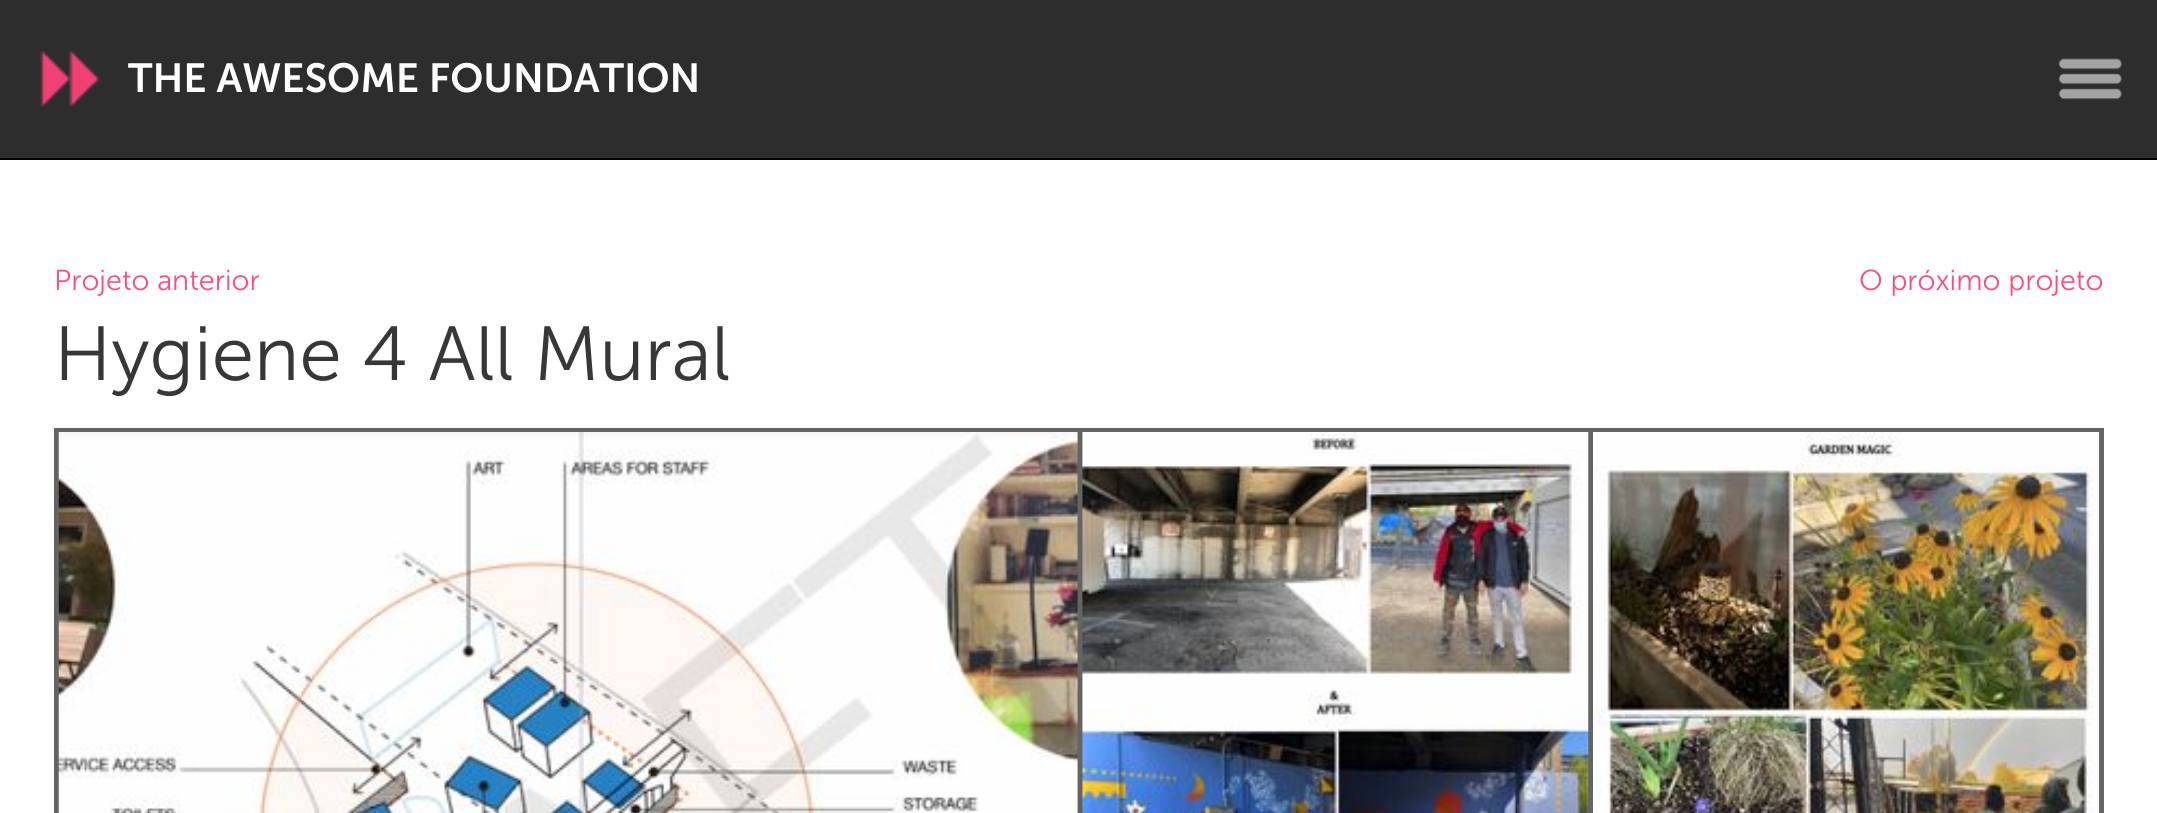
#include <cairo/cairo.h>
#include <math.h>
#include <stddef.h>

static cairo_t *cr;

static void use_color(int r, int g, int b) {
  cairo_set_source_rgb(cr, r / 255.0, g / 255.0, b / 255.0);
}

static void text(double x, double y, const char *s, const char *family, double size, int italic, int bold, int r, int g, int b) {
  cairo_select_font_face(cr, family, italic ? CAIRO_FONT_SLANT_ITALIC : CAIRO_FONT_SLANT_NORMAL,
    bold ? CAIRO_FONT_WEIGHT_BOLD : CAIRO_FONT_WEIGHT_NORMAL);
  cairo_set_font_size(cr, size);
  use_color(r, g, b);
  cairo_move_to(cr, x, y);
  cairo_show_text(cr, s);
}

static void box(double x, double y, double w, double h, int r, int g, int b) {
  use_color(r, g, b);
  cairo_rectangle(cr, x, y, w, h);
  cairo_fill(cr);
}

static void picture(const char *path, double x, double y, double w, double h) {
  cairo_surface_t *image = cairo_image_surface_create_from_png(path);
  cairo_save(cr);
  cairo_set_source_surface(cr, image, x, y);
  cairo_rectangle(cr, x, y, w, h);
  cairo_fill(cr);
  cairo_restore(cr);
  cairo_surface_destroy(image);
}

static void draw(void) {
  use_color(255, 255, 255);
  cairo_paint(cr);
  box(0, 0, 2157, 158, 45, 45, 45);
  box(0, 158, 2157, 2, 0, 0, 0);
  picture("img_01.png", 40, 51, 60, 56);
  picture("img_02.png", 2058, 58, 64, 42);
  box(54, 428, 2050, 385, 100, 100, 100);
  picture("img_03.png", 58, 432, 1020, 381);
  picture("img_04.png", 1082, 432, 507, 381);
  picture("img_05.png", 1593, 432, 507, 381);
  text(128, 92, "THE AWESOME FOUNDATION", "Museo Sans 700 SemiBold", 40.5, 0, 0, 255, 255, 255);
  text(54, 290, "Projeto anterior", "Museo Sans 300 Light", 28.75, 0, 0, 255, 75, 126);
  text(1859, 290, "O próximo projeto", "Museo Sans 300 Light", 28.75, 0, 0, 255, 75, 126);
  text(54, 380, "Hygiene 4 All Mural", "Museo Sans 300 Light", 76.5, 0, 0, 55, 55, 55);
}

int main(void) {
  cairo_surface_t *surface = cairo_image_surface_create(CAIRO_FORMAT_RGB24, 2157, 813);
  cr = cairo_create(surface);
  cairo_font_options_t *options = cairo_font_options_create();
  cairo_font_options_set_hint_metrics(options, CAIRO_HINT_METRICS_OFF);
  cairo_font_options_set_hint_style(options, CAIRO_HINT_STYLE_NONE);
  cairo_set_font_options(cr, options);
  cairo_set_miter_limit(cr, 4);
  draw();
  cairo_surface_write_to_png(surface, "out.png");
  cairo_font_options_destroy(options);
  cairo_destroy(cr);
  cairo_surface_destroy(surface);
  return 0;
}
